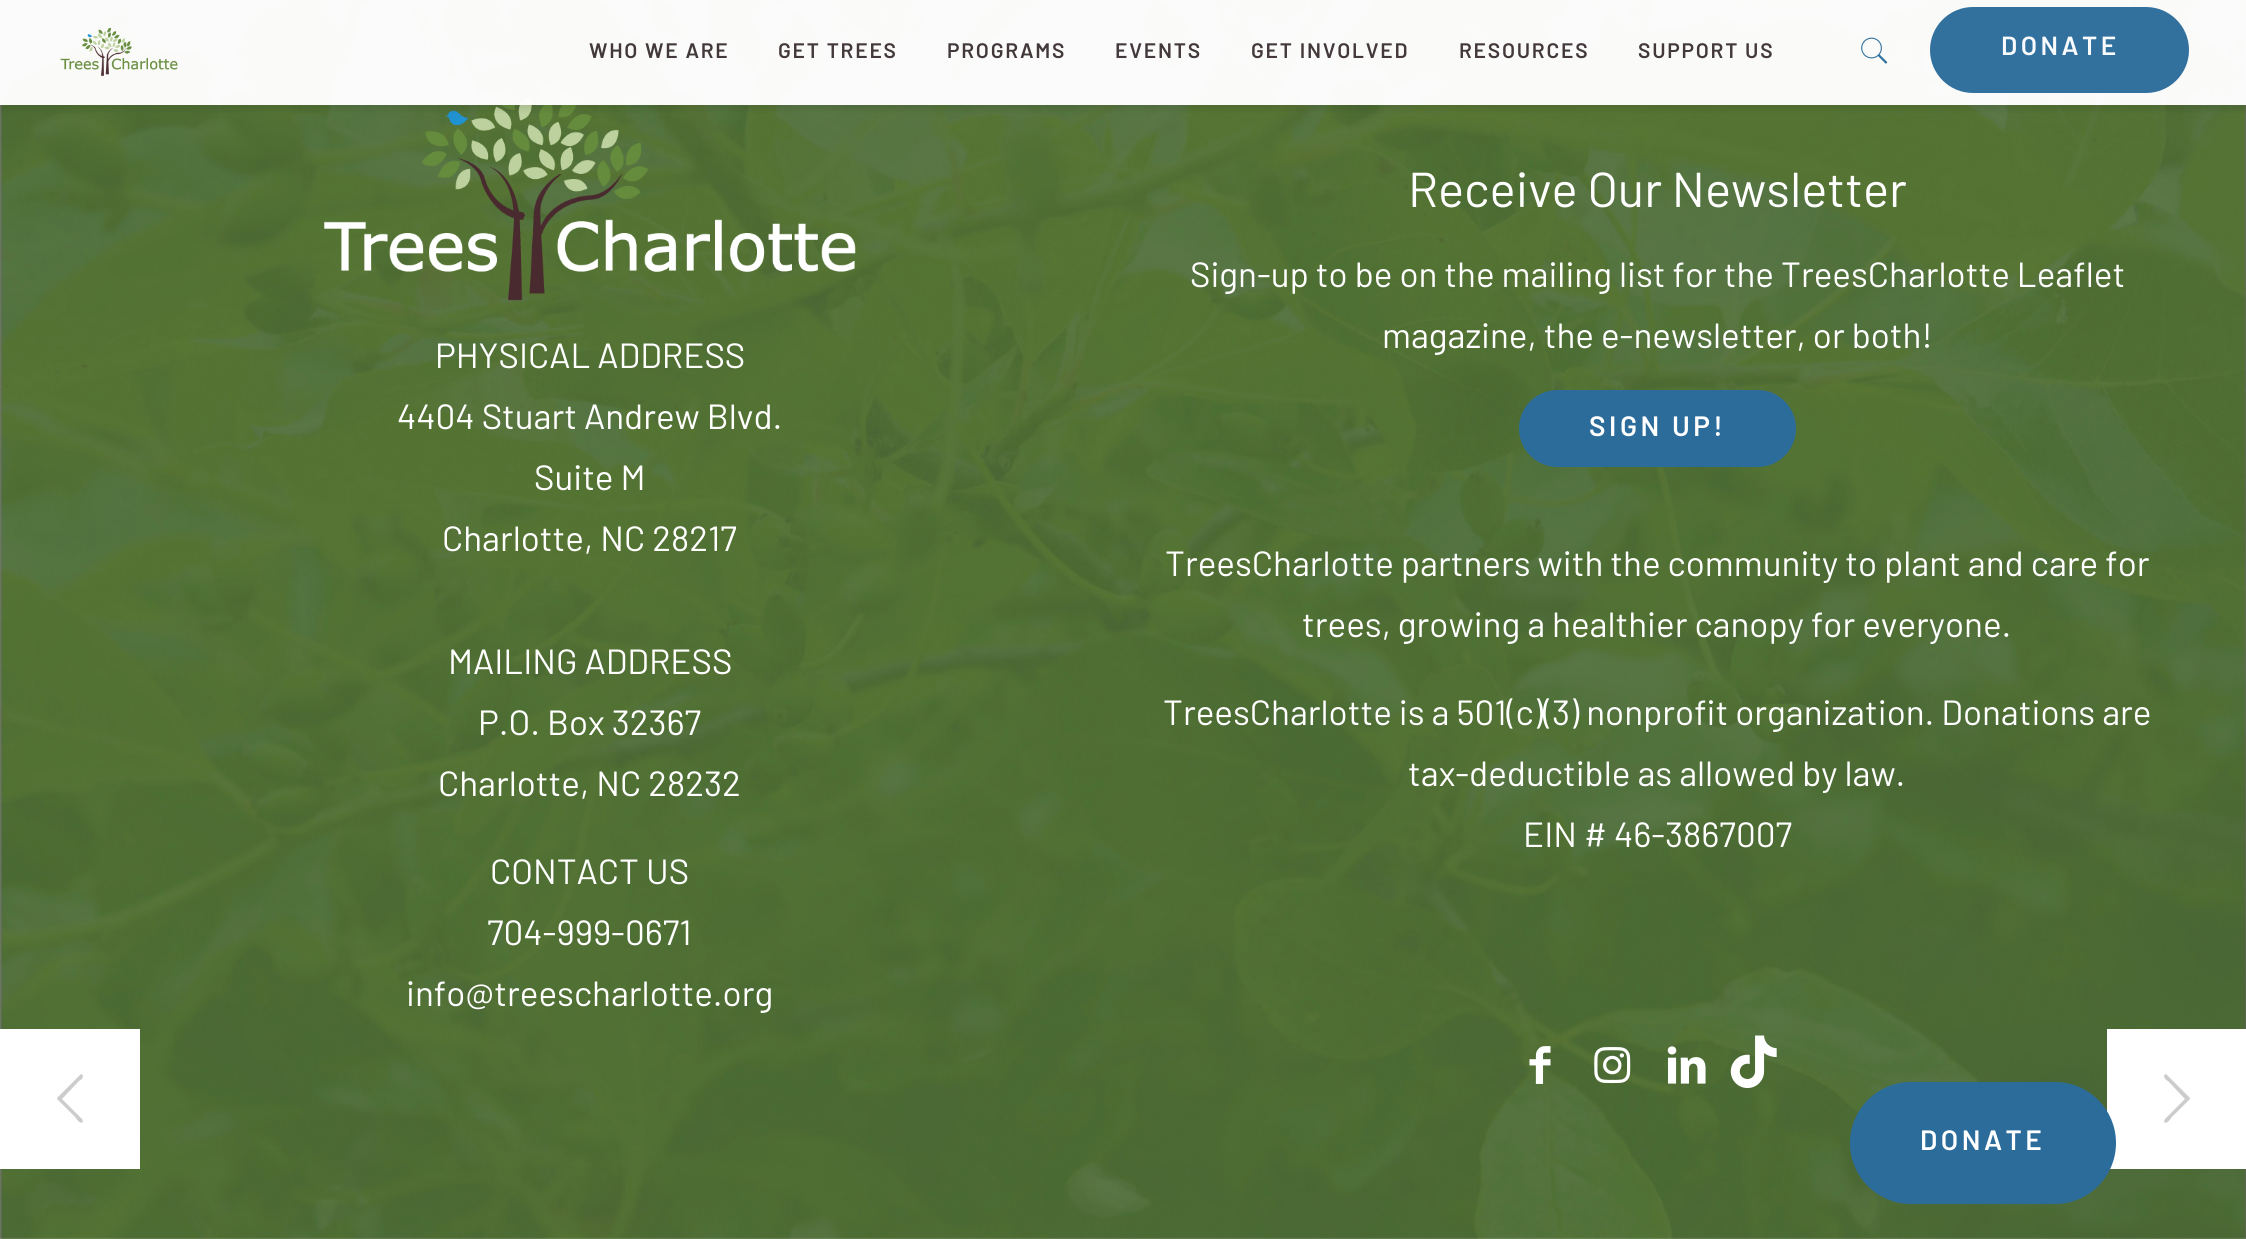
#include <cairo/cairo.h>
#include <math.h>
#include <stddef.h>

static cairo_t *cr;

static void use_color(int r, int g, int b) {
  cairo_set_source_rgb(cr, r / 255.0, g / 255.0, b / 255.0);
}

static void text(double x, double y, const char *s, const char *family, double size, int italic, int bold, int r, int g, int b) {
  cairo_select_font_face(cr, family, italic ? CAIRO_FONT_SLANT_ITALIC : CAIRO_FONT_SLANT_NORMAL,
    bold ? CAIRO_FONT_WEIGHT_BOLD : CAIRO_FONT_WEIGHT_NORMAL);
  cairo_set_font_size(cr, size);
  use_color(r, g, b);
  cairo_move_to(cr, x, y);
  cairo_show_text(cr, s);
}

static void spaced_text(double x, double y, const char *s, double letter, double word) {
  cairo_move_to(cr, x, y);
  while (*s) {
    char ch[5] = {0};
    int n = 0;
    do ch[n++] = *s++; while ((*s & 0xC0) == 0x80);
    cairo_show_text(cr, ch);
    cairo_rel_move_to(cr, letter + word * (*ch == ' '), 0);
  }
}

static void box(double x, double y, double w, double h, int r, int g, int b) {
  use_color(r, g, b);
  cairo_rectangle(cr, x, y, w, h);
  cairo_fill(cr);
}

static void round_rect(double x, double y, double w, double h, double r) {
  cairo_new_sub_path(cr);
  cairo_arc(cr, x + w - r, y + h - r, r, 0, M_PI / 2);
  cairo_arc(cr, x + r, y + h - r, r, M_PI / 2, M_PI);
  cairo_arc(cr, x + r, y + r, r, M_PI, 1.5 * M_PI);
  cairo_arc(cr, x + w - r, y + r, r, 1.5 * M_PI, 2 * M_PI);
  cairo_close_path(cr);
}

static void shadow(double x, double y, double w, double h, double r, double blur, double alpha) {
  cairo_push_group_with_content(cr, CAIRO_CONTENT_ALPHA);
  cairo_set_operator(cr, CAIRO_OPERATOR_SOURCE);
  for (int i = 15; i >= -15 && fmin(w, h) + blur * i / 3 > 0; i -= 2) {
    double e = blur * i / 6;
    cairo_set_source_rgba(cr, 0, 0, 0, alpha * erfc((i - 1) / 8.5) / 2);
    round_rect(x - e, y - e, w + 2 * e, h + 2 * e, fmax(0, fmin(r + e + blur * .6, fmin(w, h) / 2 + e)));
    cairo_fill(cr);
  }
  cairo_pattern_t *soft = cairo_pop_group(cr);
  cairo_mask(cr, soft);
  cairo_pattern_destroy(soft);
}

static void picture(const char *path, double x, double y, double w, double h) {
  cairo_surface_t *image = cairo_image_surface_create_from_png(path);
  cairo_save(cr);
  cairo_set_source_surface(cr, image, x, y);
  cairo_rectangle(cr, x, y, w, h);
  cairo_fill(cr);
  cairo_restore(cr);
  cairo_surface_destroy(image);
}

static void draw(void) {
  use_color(255, 255, 255);
  cairo_paint(cr);
  picture("img_03.png", 0, 0, 2246, 1239);
  picture("img_04.png", 324, 81, 532, 220);
  cairo_save(cr);
  cairo_rectangle(cr, 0, 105, 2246, 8);
  cairo_clip(cr);
  use_color(0, 0, 0);
  shadow(0, 4, 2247, 105, 0, 4.5, 0.1);
  cairo_restore(cr);
  cairo_set_source_rgba(cr, 1, 1, 1, 0.97);
  cairo_rectangle(cr, 0, 0, 2246, 105);
  cairo_fill(cr);
  picture("img_01.png", 60, 27, 118, 49);
  picture("img_02.png", 1861, 37, 27, 27);
  use_color(50, 112, 158);
  round_rect(1930, 7, 259, 86, 43);
  cairo_fill(cr);
  use_color(44, 108, 155);
  round_rect(1519, 390, 277, 77, 38.5);
  cairo_fill(cr);
  picture("img_05.png", 1529, 1046, 22, 38);
  picture("img_06.png", 1594, 1047, 37, 37);
  picture("img_07.png", 1667, 1046, 39, 38);
  picture("img_08.png", 1730, 1035, 47, 53);
  box(0, 1029, 140, 140, 255, 255, 255);
  use_color(204, 204, 204);
  cairo_new_path(cr);
  cairo_move_to(cr, 82, 1119);
  cairo_line_to(cr, 83, 1121);
  cairo_curve_to(cr, 82, 1126, 76, 1119, 76, 1118);
  cairo_line_to(cr, 57, 1099);
  cairo_line_to(cr, 57, 1098);
  cairo_line_to(cr, 80, 1075);
  cairo_line_to(cr, 81, 1074);
  cairo_curve_to(cr, 86, 1076, 80, 1081, 79, 1081);
  cairo_line_to(cr, 62, 1099);
  cairo_close_path(cr);
  cairo_fill(cr);
  box(2107, 1029, 139, 140, 255, 255, 255);
  use_color(44, 108, 155);
  round_rect(1850, 1082, 266, 122, 61);
  cairo_fill(cr);
  use_color(204, 204, 204);
  cairo_new_path(cr);
  cairo_move_to(cr, 2165, 1119);
  cairo_line_to(cr, 2185, 1099);
  cairo_line_to(cr, 2168, 1081);
  cairo_curve_to(cr, 2167, 1081, 2161, 1076, 2166, 1074);
  cairo_line_to(cr, 2167, 1075);
  cairo_line_to(cr, 2190, 1098);
  cairo_line_to(cr, 2190, 1099);
  cairo_line_to(cr, 2171, 1118);
  cairo_curve_to(cr, 2171, 1119, 2165, 1126, 2164, 1121);
  cairo_close_path(cr);
  cairo_fill(cr);
  cairo_select_font_face(cr, "Barlow SemiBold", CAIRO_FONT_SLANT_NORMAL, CAIRO_FONT_WEIGHT_NORMAL);
  cairo_set_font_size(cr, 21);
  use_color(67, 57, 59);
  spaced_text(589, 58, "WHO WE ARE", 1.75, 0);
  spaced_text(778, 58, "GET TREES", 1.75, 0);
  spaced_text(947, 58, "PROGRAMS", 1.75, 0);
  spaced_text(1115, 58, "EVENTS", 1.75, 0);
  spaced_text(1251, 58, "GET INVOLVED", 1.75, 0);
  spaced_text(1459, 58, "RESOURCES", 1.75, 0);
  spaced_text(1638, 58, "SUPPORT US", 1.75, 0);
  cairo_set_font_size(cr, 26.25);
  use_color(249, 251, 252);
  spaced_text(2001, 55, "DONATE", 3.5, 0);
  text(435, 368, "PHYSICAL ADDRESS", "Barlow", 35, 0, 0, 255, 255, 255);
  text(397, 429, "4404 Stuart Andrew Blvd.", "Barlow", 35, 0, 0, 255, 255, 255);
  text(534, 490, "Suite M", "Barlow", 35, 0, 0, 255, 255, 255);
  text(442, 551, "Charlotte, NC 28217", "Barlow", 35, 0, 0, 255, 255, 255);
  text(448, 674, "MAILING ADDRESS", "Barlow", 35, 0, 0, 255, 255, 255);
  text(478, 735, "P.O. Box 32367", "Barlow", 35, 0, 0, 255, 255, 255);
  text(438, 796, "Charlotte, NC 28232", "Barlow", 35, 0, 0, 255, 255, 255);
  text(490, 884, "CONTACT US", "Barlow", 35, 0, 0, 255, 255, 255);
  text(487, 945, "704-999-0671", "Barlow", 35, 0, 0, 255, 255, 255);
  text(406, 1006, "info@treescharlotte.org", "Barlow", 35, 0, 0, 255, 255, 255);
  text(1408, 207, "Receive Our Newsletter", "Barlow", 49, 0, 0, 255, 255, 255);
  text(1190, 287, "Sign-up to be on the mailing list for the TreesCharlotte Leaflet", "Barlow", 35, 0, 0, 255, 255, 255);
  text(1382, 348, "magazine, the e-newsletter, or both!", "Barlow", 35, 0, 0, 255, 255, 255);
  cairo_select_font_face(cr, "Barlow SemiBold", CAIRO_FONT_SLANT_NORMAL, CAIRO_FONT_WEIGHT_NORMAL);
  cairo_set_font_size(cr, 28);
  spaced_text(1589, 436, "SIGN UP!", 3.5, 0);
  text(1165, 576, "TreesCharlotte partners with the community to plant and care for", "Barlow", 35, 0, 0, 255, 255, 255);
  text(1302, 637, "trees, growing a healthier canopy for everyone.", "Barlow", 35, 0, 0, 255, 255, 255);
  text(1163, 725, "TreesCharlotte is a 501(c)(3) nonprofit organization. Donations are", "Barlow", 35, 0, 0, 255, 255, 255);
  text(1408, 786, "tax-deductible as allowed by law.", "Barlow", 35, 0, 0, 255, 255, 255);
  text(1523, 847, "EIN # 46-3867007", "Barlow", 35, 0, 0, 255, 255, 255);
  cairo_select_font_face(cr, "Barlow SemiBold", CAIRO_FONT_SLANT_NORMAL, CAIRO_FONT_WEIGHT_NORMAL);
  cairo_set_font_size(cr, 28);
  spaced_text(1920, 1150, "DONATE", 3.5, 0);
}

int main(void) {
  cairo_surface_t *surface = cairo_image_surface_create(CAIRO_FORMAT_RGB24, 2246, 1239);
  cr = cairo_create(surface);
  cairo_font_options_t *options = cairo_font_options_create();
  cairo_font_options_set_hint_metrics(options, CAIRO_HINT_METRICS_OFF);
  cairo_font_options_set_hint_style(options, CAIRO_HINT_STYLE_NONE);
  cairo_set_font_options(cr, options);
  cairo_set_miter_limit(cr, 4);
  draw();
  cairo_surface_write_to_png(surface, "out.png");
  cairo_font_options_destroy(options);
  cairo_destroy(cr);
  cairo_surface_destroy(surface);
  return 0;
}
